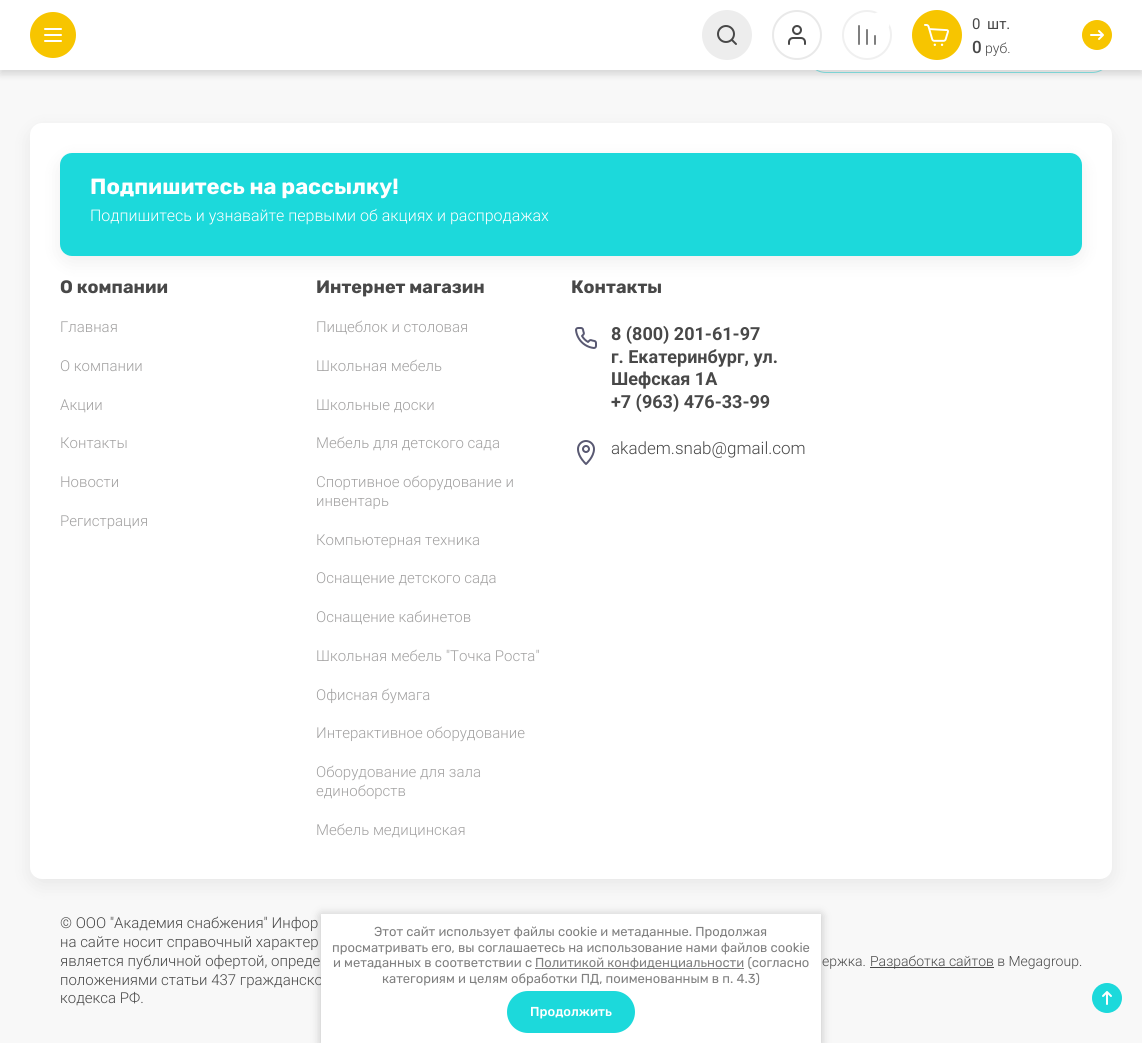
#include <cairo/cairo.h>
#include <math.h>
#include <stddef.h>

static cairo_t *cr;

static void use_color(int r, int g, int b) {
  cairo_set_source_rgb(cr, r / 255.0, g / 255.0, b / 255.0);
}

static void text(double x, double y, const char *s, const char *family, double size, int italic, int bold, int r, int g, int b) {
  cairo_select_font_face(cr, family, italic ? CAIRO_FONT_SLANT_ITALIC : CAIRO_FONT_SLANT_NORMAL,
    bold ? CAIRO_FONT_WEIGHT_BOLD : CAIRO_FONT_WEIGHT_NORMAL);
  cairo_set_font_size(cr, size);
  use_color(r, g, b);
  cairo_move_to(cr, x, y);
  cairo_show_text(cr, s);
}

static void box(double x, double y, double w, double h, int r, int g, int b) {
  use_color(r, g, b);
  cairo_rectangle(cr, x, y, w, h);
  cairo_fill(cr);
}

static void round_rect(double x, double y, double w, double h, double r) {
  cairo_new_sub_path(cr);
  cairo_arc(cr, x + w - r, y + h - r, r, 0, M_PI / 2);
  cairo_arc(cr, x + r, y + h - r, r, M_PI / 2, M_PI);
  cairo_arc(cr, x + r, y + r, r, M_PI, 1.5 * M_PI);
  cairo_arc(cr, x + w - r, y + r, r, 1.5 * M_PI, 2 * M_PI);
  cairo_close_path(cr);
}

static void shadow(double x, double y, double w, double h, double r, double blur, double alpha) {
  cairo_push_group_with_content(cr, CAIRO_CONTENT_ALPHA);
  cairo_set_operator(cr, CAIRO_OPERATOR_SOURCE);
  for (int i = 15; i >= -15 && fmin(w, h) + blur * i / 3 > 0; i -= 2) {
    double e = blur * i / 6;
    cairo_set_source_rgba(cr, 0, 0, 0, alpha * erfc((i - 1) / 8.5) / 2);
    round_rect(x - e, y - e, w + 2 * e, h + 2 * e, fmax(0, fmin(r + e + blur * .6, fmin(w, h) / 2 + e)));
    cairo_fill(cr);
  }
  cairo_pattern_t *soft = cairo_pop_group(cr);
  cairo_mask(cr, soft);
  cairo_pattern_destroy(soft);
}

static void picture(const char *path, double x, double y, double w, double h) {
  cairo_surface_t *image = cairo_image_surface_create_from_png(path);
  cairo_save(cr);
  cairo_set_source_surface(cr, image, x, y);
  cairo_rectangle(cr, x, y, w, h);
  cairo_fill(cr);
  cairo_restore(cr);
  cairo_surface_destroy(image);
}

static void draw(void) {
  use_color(248, 248, 248);
  cairo_paint(cr);
  round_rect(806.5, 33.5, 305, 39, 19.5);
  use_color(138, 233, 234);
  cairo_set_line_width(cr, 1);
  cairo_stroke(cr);
  use_color(0, 0, 0);
  shadow(0, 4, 1142, 70, 0, 4, 0.15);
  box(0, 0, 1142, 70, 255, 255, 255);
  use_color(247, 197, 0);
  cairo_arc(cr, 53, 35, 23, 0, 2 * M_PI);
  cairo_fill(cr);
  picture("img_01.png", 44, 28, 18, 14);
  use_color(237, 237, 237);
  cairo_arc(cr, 727, 35, 25, 0, 2 * M_PI);
  cairo_fill(cr);
  picture("img_02.png", 717, 25, 20, 20);
  cairo_arc(cr, 797, 35, 24, 0, 2 * M_PI);
  use_color(233, 233, 233);
  cairo_set_line_width(cr, 2);
  cairo_stroke(cr);
  picture("img_03.png", 788, 25, 18, 20);
  cairo_arc(cr, 867, 35, 24, 0, 2 * M_PI);
  use_color(240, 240, 240);
  cairo_stroke(cr);
  picture("img_04.png", 858, 25, 18, 20);
  use_color(255, 255, 255);
  cairo_arc(cr, 880, 22, 10, 0, 2 * M_PI);
  cairo_fill(cr);
  use_color(247, 197, 0);
  cairo_arc(cr, 937, 35, 25, 0, 2 * M_PI);
  cairo_fill(cr);
  picture("img_05.png", 924, 24, 25, 22);
  cairo_arc(cr, 1097, 35, 15, 0, 2 * M_PI);
  cairo_fill(cr);
  picture("img_06.png", 1090, 30, 14, 10);
  use_color(0, 0, 0);
  shadow(30, 129, 1082, 756, 12, 10, 0.07);
  use_color(255, 255, 255);
  round_rect(30, 123, 1082, 756, 12);
  cairo_fill(cr);
  use_color(0, 0, 0);
  shadow(60, 159, 1022, 103, 12, 10, 0.07);
  use_color(28, 217, 219);
  round_rect(60, 153, 1022, 103, 12);
  cairo_fill(cr);
  picture("img_07.png", 575, 327, 22, 22);
  picture("img_08.png", 577, 440, 18, 25);
  box(870, 967, 124, 1, 72, 72, 72);
  use_color(0, 0, 0);
  shadow(321, 915, 500, 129, 0, 5, 0.23);
  use_color(28, 217, 219);
  cairo_arc(cr, 1107, 998, 15, 0, 2 * M_PI);
  cairo_fill(cr);
  picture("img_09.png", 1102, 991, 10, 14);
  text(972, 29, "0", "Roboto", 15, 0, 0, 72, 72, 72);
  text(987, 29, "шт.", "Roboto", 15, 0, 0, 72, 72, 72);
  text(972, 53, "0", "Roboto Medium", 17, 0, 0, 72, 72, 72);
  text(985, 53, "руб.", "Roboto Light", 14, 0, 0, 72, 72, 72);
  text(90, 194, "Подпишитесь на рассылку!", "Rubik", 22, 0, 1, 255, 255, 255);
  text(90, 221, "Подпишитесь и узнавайте первыми об акциях и распродажах", "Roboto Light", 16, 0, 0, 255, 255, 255);
  text(60, 293, "О компании", "Rubik", 18, 0, 1, 72, 72, 72);
  text(60, 332, "Главная", "Roboto Light", 15, 0, 0, 162, 161, 161);
  text(60, 371, "О компании", "Roboto Light", 15, 0, 0, 162, 161, 161);
  text(60, 410, "Акции", "Roboto Light", 15, 0, 0, 162, 161, 161);
  text(60, 448, "Контакты", "Roboto Light", 15, 0, 0, 162, 161, 161);
  text(60, 487, "Новости", "Roboto Light", 15, 0, 0, 162, 161, 161);
  text(60, 526, "Регистрация", "Roboto Light", 15, 0, 0, 162, 161, 161);
  text(316, 293, "Интернет магазин", "Rubik", 18, 0, 1, 72, 72, 72);
  text(316, 332, "Пищеблок и столовая", "Roboto Light", 15, 0, 0, 162, 161, 161);
  text(316, 371, "Школьная мебель", "Roboto Light", 15, 0, 0, 162, 161, 161);
  text(316, 410, "Школьные доски", "Roboto Light", 15, 0, 0, 162, 161, 161);
  text(316, 448, "Мебель для детского сада", "Roboto Light", 15, 0, 0, 162, 161, 161);
  text(316, 487, "Спортивное оборудование и", "Roboto Light", 15, 0, 0, 162, 161, 161);
  text(316, 506, "инвентарь", "Roboto Light", 15, 0, 0, 162, 161, 161);
  text(316, 545, "Компьютерная техника", "Roboto Light", 15, 0, 0, 162, 161, 161);
  text(316, 583, "Оснащение детского сада", "Roboto Light", 15, 0, 0, 162, 161, 161);
  text(316, 622, "Оснащение кабинетов", "Roboto Light", 15, 0, 0, 162, 161, 161);
  text(316, 661, "Школьная мебель \"Точка Роста\"", "Roboto Light", 15, 0, 0, 162, 161, 161);
  text(316, 700, "Офисная бумага", "Roboto Light", 15, 0, 0, 162, 161, 161);
  text(316, 738, "Интерактивное оборудование", "Roboto Light", 15, 0, 0, 162, 161, 161);
  text(316, 777, "Оборудование для зала", "Roboto Light", 15, 0, 0, 162, 161, 161);
  text(316, 796, "единоборств", "Roboto Light", 15, 0, 0, 162, 161, 161);
  text(316, 835, "Мебель медицинская", "Roboto Light", 15, 0, 0, 162, 161, 161);
  text(571, 293, "Контакты", "Rubik", 18, 0, 1, 72, 72, 72);
  text(611, 340, "8 (800) 201-61-97", "Roboto", 18, 0, 1, 72, 72, 72);
  text(611, 363, "г. Екатеринбург, ул.", "Roboto", 18, 0, 1, 72, 72, 72);
  text(611, 385, "Шефская 1А", "Roboto", 18, 0, 1, 72, 72, 72);
  text(611, 408, "+7 (963) 476-33-99", "Roboto", 18, 0, 1, 72, 72, 72);
  text(611, 454, "akadem.snab@gmail.com", "Roboto Light", 17, 0, 0, 72, 72, 72);
  text(60, 928, "© ООО \"Академия снабжения\" Инфор", "Roboto Light", 15, 0, 0, 72, 72, 72);
  text(60, 947, "на сайте носит справочный характер", "Roboto Light", 15, 0, 0, 72, 72, 72);
  text(60, 966, "является публичной офертой, опреде", "Roboto Light", 15, 0, 0, 72, 72, 72);
  text(60, 985, "положениями статьи 437 гражданско", "Roboto Light", 15, 0, 0, 72, 72, 72);
  text(60, 1003, "кодекса РФ.", "Roboto Light", 15, 0, 0, 72, 72, 72);
  text(822, 966, "ержка.", "Roboto Light", 14, 0, 0, 72, 72, 72);
  text(870, 966, "Разработка сайтов в Megagroup.", "Roboto Light", 14, 0, 0, 72, 72, 72);
  box(321, 914, 500, 129, 255, 255, 255);
  text(374, 936, "Этот сайт использует файлы cookie и метаданные. Продолжая", "Rubik", 13, 0, 0, 128, 128, 128);
  text(332, 952, "просматривать его, вы соглашаетесь на использование нами файлов cookie", "Rubik", 13, 0, 0, 128, 128, 128);
  text(333, 967, "и метаданных в соответствии с", "Rubik", 13, 0, 0, 128, 128, 128);
  box(535, 968, 209, 1, 128, 128, 128);
  text(535, 967, "Политикой конфиденциальности (согласно", "Rubik", 13, 0, 0, 128, 128, 128);
  text(382, 983, "категориям и целям обработки ПД, поименованным в п. 4.3)", "Rubik", 13, 0, 0, 128, 128, 128);
  use_color(28, 217, 219);
  round_rect(507, 991, 128, 42, 21);
  cairo_fill(cr);
  text(530, 1016, "Продолжить", "Rubik Medium", 13, 0, 0, 255, 255, 255);
}

int main(void) {
  cairo_surface_t *surface = cairo_image_surface_create(CAIRO_FORMAT_RGB24, 1142, 1043);
  cr = cairo_create(surface);
  cairo_font_options_t *options = cairo_font_options_create();
  cairo_font_options_set_hint_metrics(options, CAIRO_HINT_METRICS_OFF);
  cairo_font_options_set_hint_style(options, CAIRO_HINT_STYLE_NONE);
  cairo_set_font_options(cr, options);
  cairo_set_miter_limit(cr, 4);
  draw();
  cairo_surface_write_to_png(surface, "out.png");
  cairo_font_options_destroy(options);
  cairo_destroy(cr);
  cairo_surface_destroy(surface);
  return 0;
}
